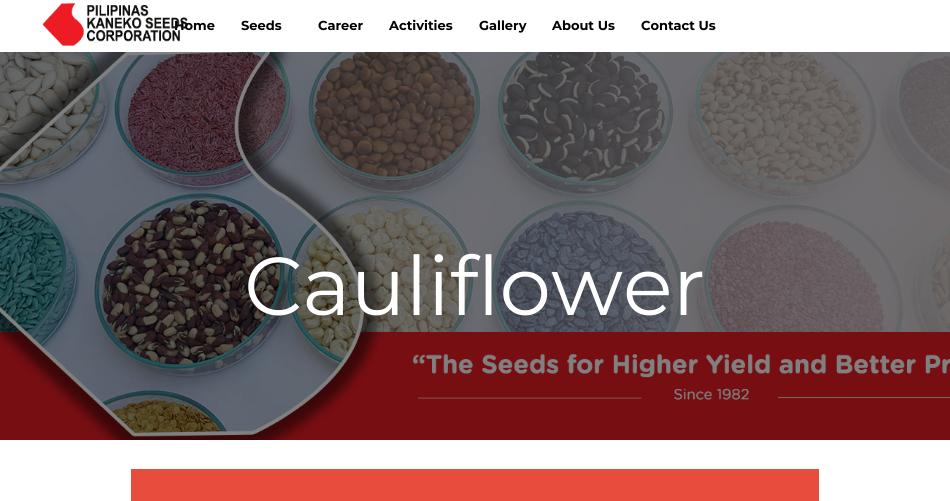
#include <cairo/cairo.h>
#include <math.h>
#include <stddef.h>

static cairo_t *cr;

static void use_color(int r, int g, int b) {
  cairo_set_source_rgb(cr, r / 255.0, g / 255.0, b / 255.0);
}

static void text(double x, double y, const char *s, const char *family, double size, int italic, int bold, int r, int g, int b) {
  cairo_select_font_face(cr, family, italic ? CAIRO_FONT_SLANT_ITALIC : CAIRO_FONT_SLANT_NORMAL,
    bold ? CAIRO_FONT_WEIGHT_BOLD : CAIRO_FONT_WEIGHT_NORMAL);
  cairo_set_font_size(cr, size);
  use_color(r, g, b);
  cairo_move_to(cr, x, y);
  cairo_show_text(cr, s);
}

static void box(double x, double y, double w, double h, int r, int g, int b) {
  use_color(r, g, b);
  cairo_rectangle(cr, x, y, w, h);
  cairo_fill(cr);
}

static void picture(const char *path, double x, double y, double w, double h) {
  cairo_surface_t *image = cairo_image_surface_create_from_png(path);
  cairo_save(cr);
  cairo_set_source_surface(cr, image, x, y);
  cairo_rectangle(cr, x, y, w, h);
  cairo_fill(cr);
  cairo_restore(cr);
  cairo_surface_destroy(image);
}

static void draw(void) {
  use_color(255, 255, 255);
  cairo_paint(cr);
  picture("img_02.png", 0, 52, 950, 388);
  box(131, 469, 688, 32, 231, 76, 60);
  text(174, 30, "Home", "Montserrat", 13, 0, 1, 0, 0, 0);
  picture("img_01.png", 42, 3, 146, 43);
  text(241, 30, "Seeds", "Montserrat", 13, 0, 1, 0, 0, 0);
  text(318, 30, "Career", "Montserrat", 13, 0, 1, 0, 0, 0);
  text(389, 30, "Activities", "Montserrat", 13, 0, 1, 0, 0, 0);
  text(479, 30, "Gallery", "Montserrat", 13, 0, 1, 0, 0, 0);
  text(552, 30, "About Us", "Montserrat", 13, 0, 1, 0, 0, 0);
  text(641, 30, "Contact Us", "Montserrat", 13, 0, 1, 0, 0, 0);
  text(244, 315, "Cauliflower", "Montserrat", 82, 0, 0, 255, 255, 255);
}

int main(void) {
  cairo_surface_t *surface = cairo_image_surface_create(CAIRO_FORMAT_RGB24, 950, 501);
  cr = cairo_create(surface);
  cairo_font_options_t *options = cairo_font_options_create();
  cairo_font_options_set_hint_metrics(options, CAIRO_HINT_METRICS_OFF);
  cairo_font_options_set_hint_style(options, CAIRO_HINT_STYLE_NONE);
  cairo_set_font_options(cr, options);
  cairo_set_miter_limit(cr, 4);
  draw();
  cairo_surface_write_to_png(surface, "out.png");
  cairo_font_options_destroy(options);
  cairo_destroy(cr);
  cairo_surface_destroy(surface);
  return 0;
}
